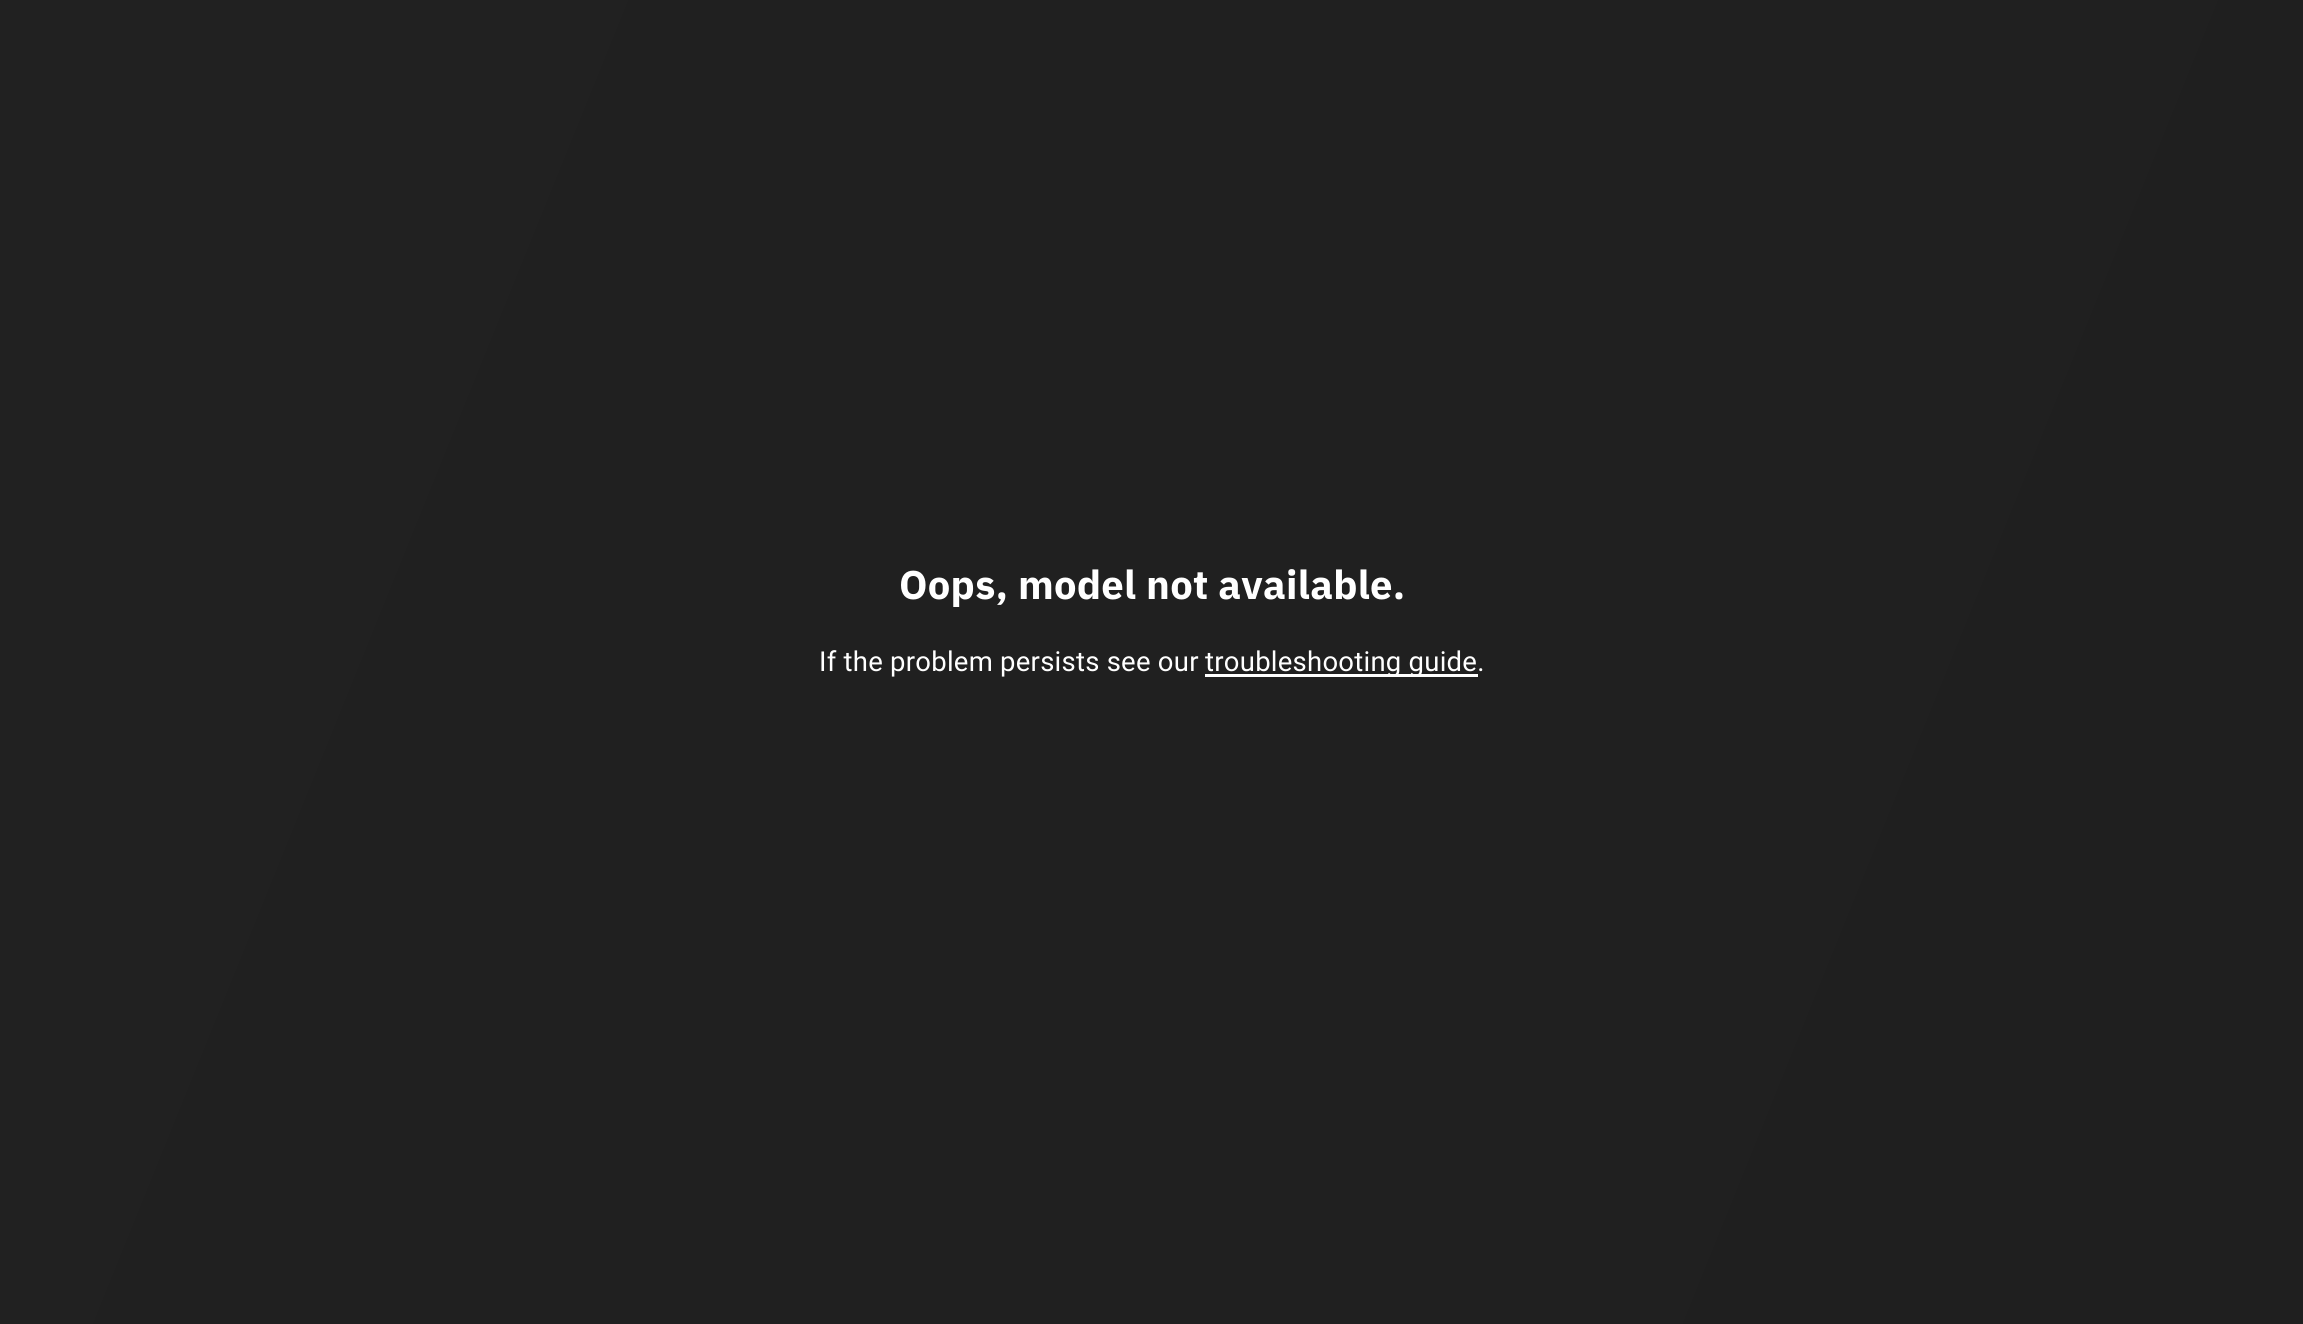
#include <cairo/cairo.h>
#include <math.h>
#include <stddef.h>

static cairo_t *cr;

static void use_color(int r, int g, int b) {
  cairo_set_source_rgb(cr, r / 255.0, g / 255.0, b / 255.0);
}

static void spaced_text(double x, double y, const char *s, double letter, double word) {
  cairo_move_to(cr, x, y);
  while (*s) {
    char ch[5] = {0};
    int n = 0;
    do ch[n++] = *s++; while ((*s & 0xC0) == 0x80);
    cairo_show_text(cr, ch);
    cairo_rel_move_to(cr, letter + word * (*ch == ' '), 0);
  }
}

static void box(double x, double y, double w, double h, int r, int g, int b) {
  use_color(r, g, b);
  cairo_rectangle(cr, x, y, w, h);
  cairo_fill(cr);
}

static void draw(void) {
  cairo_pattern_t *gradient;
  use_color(255, 255, 255);
  cairo_paint(cr);
  gradient = cairo_pattern_create_linear(-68, 169, 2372, 1156);
  cairo_pattern_add_color_stop_rgba(gradient, 0, 0.129, 0.129, 0.129, 1);
  cairo_pattern_add_color_stop_rgba(gradient, 1, 0.122, 0.122, 0.122, 1);
  cairo_set_source(cr, gradient);
  cairo_pattern_destroy(gradient);
  cairo_rectangle(cr, 0, 0, 2303, 1324);
  cairo_fill(cr);
  box(1205, 674, 273, 3, 255, 255, 255);
  cairo_select_font_face(cr, "IBM Plex Sans", CAIRO_FONT_SLANT_NORMAL, CAIRO_FONT_WEIGHT_BOLD);
  cairo_set_font_size(cr, 40);
  spaced_text(899, 599, "Oops, model not available.", 0.25, 0);
  cairo_select_font_face(cr, "Roboto", CAIRO_FONT_SLANT_NORMAL, CAIRO_FONT_WEIGHT_NORMAL);
  cairo_set_font_size(cr, 27.5);
  spaced_text(819, 671, "If the problem persists see our", 0.25, 0);
  spaced_text(1205, 671, "troubleshooting guide.", 0.25, 0);
}

int main(void) {
  cairo_surface_t *surface = cairo_image_surface_create(CAIRO_FORMAT_RGB24, 2303, 1324);
  cr = cairo_create(surface);
  cairo_font_options_t *options = cairo_font_options_create();
  cairo_font_options_set_hint_metrics(options, CAIRO_HINT_METRICS_OFF);
  cairo_font_options_set_hint_style(options, CAIRO_HINT_STYLE_NONE);
  cairo_set_font_options(cr, options);
  cairo_set_miter_limit(cr, 4);
  draw();
  cairo_surface_write_to_png(surface, "out.png");
  cairo_font_options_destroy(options);
  cairo_destroy(cr);
  cairo_surface_destroy(surface);
  return 0;
}
